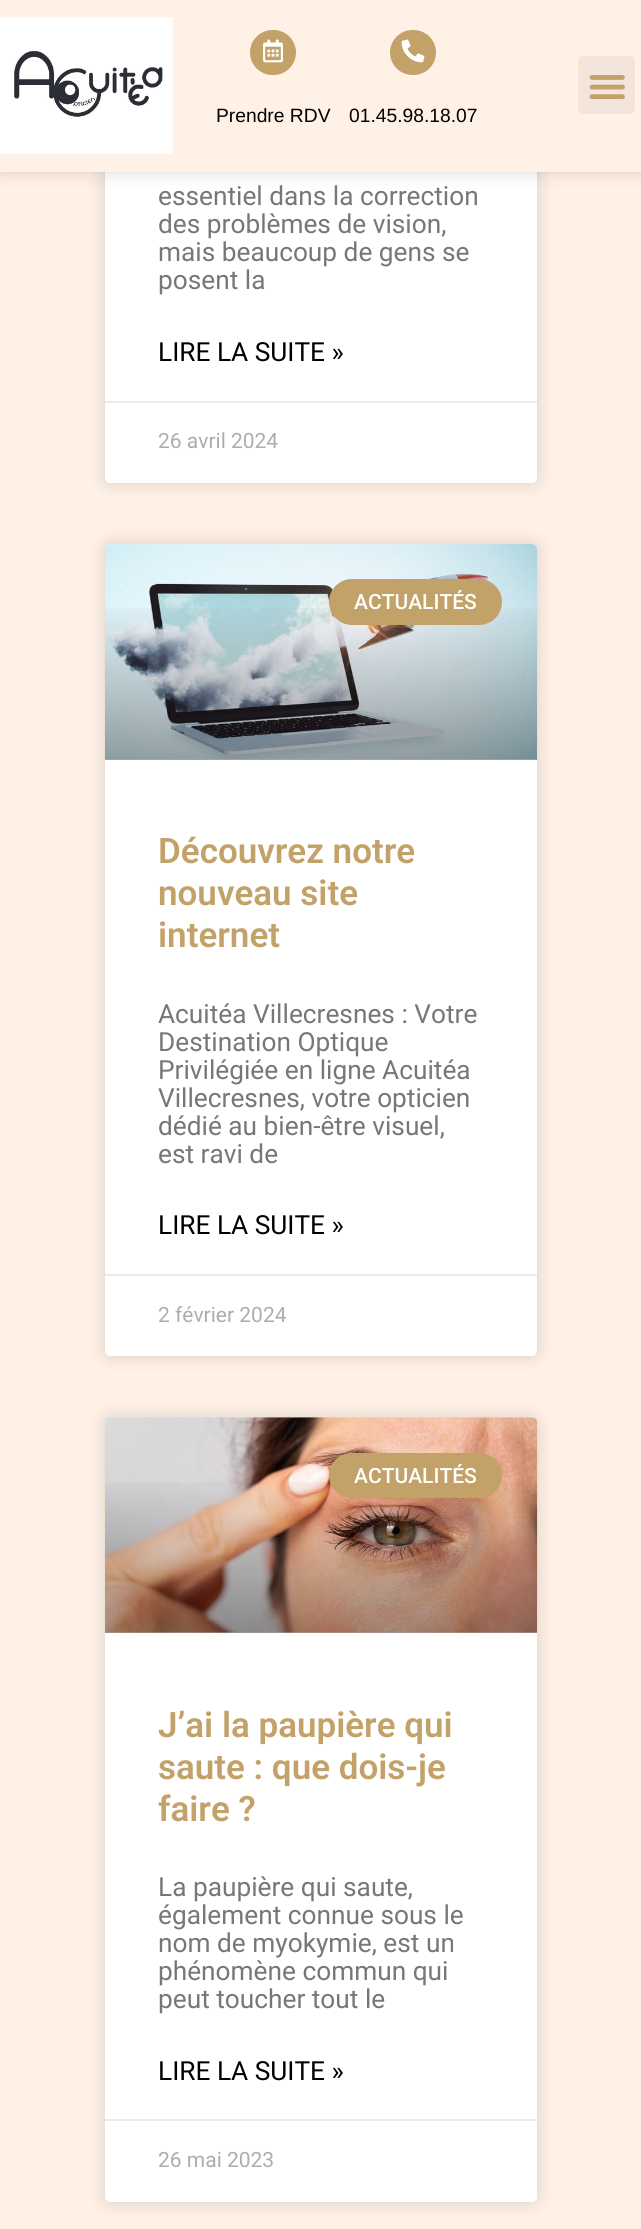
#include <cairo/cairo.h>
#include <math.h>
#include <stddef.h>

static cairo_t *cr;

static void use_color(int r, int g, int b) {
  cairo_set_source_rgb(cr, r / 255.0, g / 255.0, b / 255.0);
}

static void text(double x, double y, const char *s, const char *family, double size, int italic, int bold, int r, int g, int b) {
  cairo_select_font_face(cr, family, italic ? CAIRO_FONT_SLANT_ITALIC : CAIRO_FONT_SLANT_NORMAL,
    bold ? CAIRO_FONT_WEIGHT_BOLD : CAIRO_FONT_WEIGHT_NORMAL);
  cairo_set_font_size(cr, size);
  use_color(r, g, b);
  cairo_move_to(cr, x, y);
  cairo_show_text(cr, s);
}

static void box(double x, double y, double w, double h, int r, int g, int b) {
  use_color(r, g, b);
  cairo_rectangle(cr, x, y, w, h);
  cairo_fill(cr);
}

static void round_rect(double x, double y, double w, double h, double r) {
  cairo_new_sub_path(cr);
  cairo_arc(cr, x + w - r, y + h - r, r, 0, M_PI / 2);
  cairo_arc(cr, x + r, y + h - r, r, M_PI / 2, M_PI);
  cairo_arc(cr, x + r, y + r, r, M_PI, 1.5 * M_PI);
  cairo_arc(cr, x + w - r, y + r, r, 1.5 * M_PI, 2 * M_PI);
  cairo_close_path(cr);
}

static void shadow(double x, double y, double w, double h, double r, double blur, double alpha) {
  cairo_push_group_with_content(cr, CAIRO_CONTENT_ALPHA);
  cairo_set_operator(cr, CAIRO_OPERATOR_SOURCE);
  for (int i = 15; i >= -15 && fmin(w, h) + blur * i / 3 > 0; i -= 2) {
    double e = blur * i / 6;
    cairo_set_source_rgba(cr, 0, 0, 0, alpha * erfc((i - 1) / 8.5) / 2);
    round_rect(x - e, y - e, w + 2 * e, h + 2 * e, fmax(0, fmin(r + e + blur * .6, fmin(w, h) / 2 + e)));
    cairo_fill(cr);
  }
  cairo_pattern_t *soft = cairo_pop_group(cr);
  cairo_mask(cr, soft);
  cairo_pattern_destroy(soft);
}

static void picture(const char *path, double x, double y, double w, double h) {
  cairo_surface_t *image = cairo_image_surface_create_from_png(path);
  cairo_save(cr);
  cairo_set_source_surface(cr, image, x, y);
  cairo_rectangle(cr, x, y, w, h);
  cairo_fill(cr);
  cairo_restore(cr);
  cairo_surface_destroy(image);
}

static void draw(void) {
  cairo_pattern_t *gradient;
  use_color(255, 241, 230);
  cairo_paint(cr);
  use_color(0, 0, 0);
  shadow(105, -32, 432, 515, 5, 9, 0.15);
  use_color(255, 255, 255);
  round_rect(105, -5, 432, 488, 5);
  cairo_fill(cr);
  use_color(0, 0, 0);
  shadow(0, 0, 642, 172, 0, 9, 0.15);
  box(0, 0, 641, 172, 255, 241, 230);
  picture("img_01.png", 0, 17, 173, 137);
  use_color(242, 229, 219);
  round_rect(578, 56, 57, 58, 5);
  cairo_fill(cr);
  picture("img_02.png", 589, 75, 36, 25);
  use_color(195, 162, 105);
  round_rect(250, 30, 46, 45, 22.5);
  cairo_fill(cr);
  picture("img_03.png", 263, 39, 20, 24);
  round_rect(390, 30, 46, 45, 22.5);
  cairo_fill(cr);
  picture("img_04.png", 401, 39, 24, 24);
  box(105, 401, 432, 2, 234, 234, 234);
  use_color(0, 0, 0);
  shadow(105, 544, 432, 812, 5, 9, 0.15);
  use_color(255, 255, 255);
  round_rect(105, 544, 432, 812, 5);
  cairo_fill(cr);
  picture("img_05.png", 105, 544, 433, 216);
  gradient = cairo_pattern_create_linear(321, 760, 321, 544);
  cairo_pattern_add_color_stop_rgba(gradient, 0, 0, 0, 0, 0.35);
  cairo_pattern_add_color_stop_rgba(gradient, 0.75, 0, 0, 0, 0);
  cairo_set_source(cr, gradient);
  cairo_pattern_destroy(gradient);
  cairo_rectangle(cr, 105, 608, 432, 152);
  cairo_fill(cr);
  use_color(195, 162, 105);
  round_rect(329, 579, 173, 46, 23);
  cairo_fill(cr);
  box(105, 1274, 432, 2, 234, 234, 234);
  use_color(0, 0, 0);
  shadow(105, 1418, 432, 784, 5, 9, 0.15);
  use_color(255, 255, 255);
  round_rect(105, 1418, 432, 784, 5);
  cairo_fill(cr);
  picture("img_06.png", 105, 1417, 433, 216);
  gradient = cairo_pattern_create_linear(321, 1633, 321, 1418);
  cairo_pattern_add_color_stop_rgba(gradient, 0, 0, 0, 0, 0.35);
  cairo_pattern_add_color_stop_rgba(gradient, 0.75, 0, 0, 0, 0);
  cairo_set_source(cr, gradient);
  cairo_pattern_destroy(gradient);
  cairo_rectangle(cr, 105, 1482, 432, 151);
  cairo_fill(cr);
  use_color(195, 162, 105);
  round_rect(329, 1453, 173, 45, 22.5);
  cairo_fill(cr);
  box(105, 2119, 432, 2, 234, 234, 234);
  text(216, 122, "Prendre RDV", "Liberation Sans", 19.25, 0, 0, 0, 0, 0);
  text(349, 122, "01.45.98.18.07", "Liberation Sans", 19.25, 0, 0, 0, 0, 0);
  text(158, 205, "essentiel dans la correction", "Roboto", 26.25, 0, 0, 119, 119, 119);
  text(158, 233, "des problèmes de vision,", "Roboto", 26.25, 0, 0, 119, 119, 119);
  text(158, 261, "mais beaucoup de gens se", "Roboto", 26.25, 0, 0, 119, 119, 119);
  text(158, 289, "posent la", "Roboto", 26.25, 0, 0, 119, 119, 119);
  text(158, 361, "LIRE LA SUITE »", "Roboto", 26.25, 0, 0, 0, 0, 0);
  text(158, 448, "26 avril 2024", "Roboto", 21, 0, 0, 173, 173, 173);
  text(354, 609, "ACTUALITÉS", "Roboto Medium", 21, 0, 0, 255, 255, 255);
  text(158, 863, "Découvrez notre", "Roboto SemiBold", 35, 0, 0, 195, 162, 105);
  text(158, 905, "nouveau site", "Roboto SemiBold", 35, 0, 0, 195, 162, 105);
  text(158, 947, "internet", "Roboto SemiBold", 35, 0, 0, 195, 162, 105);
  text(158, 1023, "Acuitéa Villecresnes : Votre", "Roboto", 26.25, 0, 0, 119, 119, 119);
  text(158, 1051, "Destination Optique", "Roboto", 26.25, 0, 0, 119, 119, 119);
  text(158, 1079, "Privilégiée en ligne Acuitéa", "Roboto", 26.25, 0, 0, 119, 119, 119);
  text(158, 1107, "Villecresnes, votre opticien", "Roboto", 26.25, 0, 0, 119, 119, 119);
  text(158, 1135, "dédié au bien-être visuel,", "Roboto", 26.25, 0, 0, 119, 119, 119);
  text(158, 1163, "est ravi de", "Roboto", 26.25, 0, 0, 119, 119, 119);
  text(158, 1234, "LIRE LA SUITE »", "Roboto", 26.25, 0, 0, 0, 0, 0);
  text(158, 1322, "2 février 2024", "Roboto", 21, 0, 0, 173, 173, 173);
  text(354, 1483, "ACTUALITÉS", "Roboto Medium", 21, 0, 0, 255, 255, 255);
  text(158, 1737, "J’ai la paupière qui", "Roboto SemiBold", 35, 0, 0, 195, 162, 105);
  text(158, 1779, "saute : que dois-je", "Roboto SemiBold", 35, 0, 0, 195, 162, 105);
  text(158, 1821, "faire ?", "Roboto SemiBold", 35, 0, 0, 195, 162, 105);
  text(158, 1896, "La paupière qui saute,", "Roboto", 26.25, 0, 0, 119, 119, 119);
  text(158, 1924, "également connue sous le", "Roboto", 26.25, 0, 0, 119, 119, 119);
  text(158, 1952, "nom de myokymie, est un", "Roboto", 26.25, 0, 0, 119, 119, 119);
  text(158, 1980, "phénomène commun qui", "Roboto", 26.25, 0, 0, 119, 119, 119);
  text(158, 2008, "peut toucher tout le", "Roboto", 26.25, 0, 0, 119, 119, 119);
  text(158, 2080, "LIRE LA SUITE »", "Roboto", 26.25, 0, 0, 0, 0, 0);
  text(158, 2167, "26 mai 2023", "Roboto", 21, 0, 0, 173, 173, 173);
}

int main(void) {
  cairo_surface_t *surface = cairo_image_surface_create(CAIRO_FORMAT_RGB24, 641, 2229);
  cr = cairo_create(surface);
  cairo_font_options_t *options = cairo_font_options_create();
  cairo_font_options_set_hint_metrics(options, CAIRO_HINT_METRICS_OFF);
  cairo_font_options_set_hint_style(options, CAIRO_HINT_STYLE_NONE);
  cairo_set_font_options(cr, options);
  cairo_set_miter_limit(cr, 4);
  draw();
  cairo_surface_write_to_png(surface, "out.png");
  cairo_font_options_destroy(options);
  cairo_destroy(cr);
  cairo_surface_destroy(surface);
  return 0;
}
